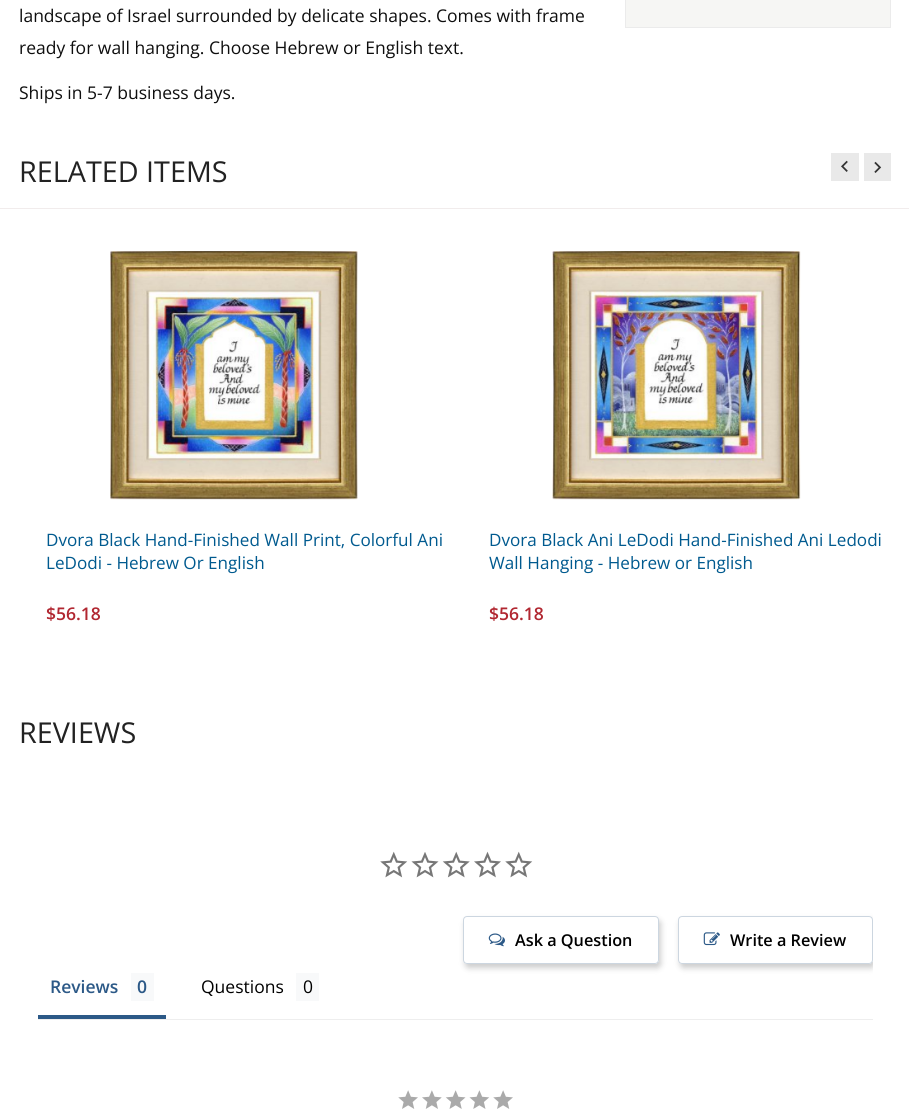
#include <cairo/cairo.h>
#include <math.h>
#include <stddef.h>

static cairo_t *cr;

static void use_color(int r, int g, int b) {
  cairo_set_source_rgb(cr, r / 255.0, g / 255.0, b / 255.0);
}

static void text(double x, double y, const char *s, const char *family, double size, int italic, int bold, int r, int g, int b) {
  cairo_select_font_face(cr, family, italic ? CAIRO_FONT_SLANT_ITALIC : CAIRO_FONT_SLANT_NORMAL,
    bold ? CAIRO_FONT_WEIGHT_BOLD : CAIRO_FONT_WEIGHT_NORMAL);
  cairo_set_font_size(cr, size);
  use_color(r, g, b);
  cairo_move_to(cr, x, y);
  cairo_show_text(cr, s);
}

static void box(double x, double y, double w, double h, int r, int g, int b) {
  use_color(r, g, b);
  cairo_rectangle(cr, x, y, w, h);
  cairo_fill(cr);
}

static void round_rect(double x, double y, double w, double h, double r) {
  cairo_new_sub_path(cr);
  cairo_arc(cr, x + w - r, y + h - r, r, 0, M_PI / 2);
  cairo_arc(cr, x + r, y + h - r, r, M_PI / 2, M_PI);
  cairo_arc(cr, x + r, y + r, r, M_PI, 1.5 * M_PI);
  cairo_arc(cr, x + w - r, y + r, r, 1.5 * M_PI, 2 * M_PI);
  cairo_close_path(cr);
}

static void shadow(double x, double y, double w, double h, double r, double blur, double alpha) {
  cairo_push_group_with_content(cr, CAIRO_CONTENT_ALPHA);
  cairo_set_operator(cr, CAIRO_OPERATOR_SOURCE);
  for (int i = 15; i >= -15 && fmin(w, h) + blur * i / 3 > 0; i -= 2) {
    double e = blur * i / 6;
    cairo_set_source_rgba(cr, 0, 0, 0, alpha * erfc((i - 1) / 8.5) / 2);
    round_rect(x - e, y - e, w + 2 * e, h + 2 * e, fmax(0, fmin(r + e + blur * .6, fmin(w, h) / 2 + e)));
    cairo_fill(cr);
  }
  cairo_pattern_t *soft = cairo_pop_group(cr);
  cairo_mask(cr, soft);
  cairo_pattern_destroy(soft);
}

static void picture(const char *path, double x, double y, double w, double h) {
  cairo_surface_t *image = cairo_image_surface_create_from_png(path);
  cairo_save(cr);
  cairo_set_source_surface(cr, image, x, y);
  cairo_rectangle(cr, x, y, w, h);
  cairo_fill(cr);
  cairo_restore(cr);
  cairo_surface_destroy(image);
}

static void draw(void) {
  use_color(255, 255, 255);
  cairo_paint(cr);
  use_color(246, 246, 244);
  cairo_rectangle(cr, 625.5, -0.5, 265, 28);
  cairo_fill_preserve(cr);
  use_color(235, 235, 235);
  cairo_set_line_width(cr, 1);
  cairo_stroke(cr);
  box(0, 208, 909, 1, 241, 236, 236);
  box(831, 153, 28, 28, 233, 233, 233);
  picture("img_01.png", 841, 160, 7, 12);
  box(864, 153, 27, 28, 233, 233, 233);
  picture("img_02.png", 874, 161, 8, 12);
  picture("img_03.png", 110, 251, 248, 249);
  picture("img_04.png", 552, 251, 249, 249);
  picture("img_05.png", 380, 851, 28, 27);
  picture("img_06.png", 411, 852, 28, 26);
  picture("img_07.png", 442, 851, 28, 27);
  picture("img_08.png", 474, 851, 27, 27);
  picture("img_05.png", 505, 851, 28, 27);
  cairo_save(cr);
  cairo_set_fill_rule(cr, CAIRO_FILL_RULE_EVEN_ODD);
  cairo_new_path(cr);
  cairo_move_to(cr, 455, 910);
  cairo_line_to(cr, 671, 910);
  cairo_line_to(cr, 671, 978);
  cairo_line_to(cr, 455, 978);
  cairo_close_path(cr);
  cairo_move_to(cr, 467, 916);
  cairo_line_to(cr, 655, 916);
  cairo_curve_to(cr, 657, 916, 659, 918, 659, 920);
  cairo_line_to(cr, 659, 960);
  cairo_curve_to(cr, 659, 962, 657, 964, 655, 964);
  cairo_line_to(cr, 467, 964);
  cairo_curve_to(cr, 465, 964, 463, 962, 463, 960);
  cairo_line_to(cr, 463, 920);
  cairo_curve_to(cr, 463, 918, 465, 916, 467, 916);
  cairo_close_path(cr);
  cairo_clip(cr);
  use_color(136, 136, 136);
  shadow(465, 920, 196, 48, 4, 3, 0.42);
  cairo_restore(cr);
  round_rect(463.5, 916.5, 195, 47, 3.5);
  use_color(204, 214, 224);
  cairo_stroke(cr);
  picture("img_09.png", 488, 933, 17, 14);
  cairo_save(cr);
  cairo_rectangle(cr, 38, 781, 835, 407);
  cairo_clip(cr);
  cairo_set_fill_rule(cr, CAIRO_FILL_RULE_EVEN_ODD);
  cairo_new_path(cr);
  cairo_move_to(cr, 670, 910);
  cairo_line_to(cr, 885, 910);
  cairo_line_to(cr, 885, 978);
  cairo_line_to(cr, 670, 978);
  cairo_close_path(cr);
  cairo_move_to(cr, 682, 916);
  cairo_line_to(cr, 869, 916);
  cairo_curve_to(cr, 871, 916, 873, 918, 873, 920);
  cairo_line_to(cr, 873, 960);
  cairo_curve_to(cr, 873, 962, 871, 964, 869, 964);
  cairo_line_to(cr, 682, 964);
  cairo_curve_to(cr, 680, 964, 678, 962, 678, 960);
  cairo_line_to(cr, 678, 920);
  cairo_curve_to(cr, 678, 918, 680, 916, 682, 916);
  cairo_close_path(cr);
  cairo_clip(cr);
  use_color(136, 136, 136);
  shadow(680, 920, 195, 48, 4, 3, 0.42);
  cairo_restore(cr);
  round_rect(678.5, 916.5, 194, 47, 3.5);
  cairo_stroke(cr);
  picture("img_10.png", 703, 932, 17, 14);
  box(38, 1019, 835, 1, 238, 238, 238);
  box(38, 1015, 128, 4, 44, 89, 135);
  box(131, 973, 23, 28, 248, 249, 250);
  box(296, 973, 23, 28, 248, 249, 250);
  picture("img_11.png", 398, 1090, 115, 19);
  text(19, 22, "landscape of Israel surrounded by delicate shapes. Comes with frame", "Open Sans", 17.5, 0, 0, 14, 14, 14);
  text(19, 54, "ready for wall hanging. Choose Hebrew or English text.", "Open Sans", 17.5, 0, 0, 14, 14, 14);
  text(19, 99, "Ships in 5-7 business days.", "Open Sans", 17.5, 0, 0, 14, 14, 14);
  text(19, 182, "RELATED ITEMS", "Open Sans", 28.75, 0, 0, 34, 34, 34);
  text(46, 546, "Dvora Black Hand-Finished Wall Print, Colorful Ani", "Open Sans", 17.1, 0, 0, 0, 90, 143);
  text(46, 569, "LeDodi - Hebrew Or English", "Open Sans", 17.1, 0, 0, 0, 90, 143);
  text(46, 620, "$56.18", "Open Sans SemiBold", 17.5, 0, 0, 177, 39, 49);
  text(489, 546, "Dvora Black Ani LeDodi Hand-Finished Ani Ledodi", "Open Sans", 17.1, 0, 0, 0, 90, 143);
  text(489, 569, "Wall Hanging - Hebrew or English", "Open Sans", 17.1, 0, 0, 0, 90, 143);
  text(489, 620, "$56.18", "Open Sans SemiBold", 17.5, 0, 0, 177, 39, 49);
  text(19, 743, "REVIEWS", "Open Sans", 28.75, 0, 0, 34, 34, 34);
  text(515, 946, "Ask a Question", "Open Sans SemiBold", 16.25, 0, 0, 0, 0, 0);
  text(730, 946, "Write a Review", "Open Sans SemiBold", 16.25, 0, 0, 0, 0, 0);
  text(50, 993, "Reviews", "Open Sans SemiBold", 17.5, 0, 0, 44, 89, 135);
  text(137, 993, "0", "Open Sans SemiBold", 17.5, 0, 0, 44, 89, 135);
  text(201, 993, "Questions", "Open Sans", 17.5, 0, 0, 0, 0, 0);
  text(303, 993, "0", "Open Sans", 17.5, 0, 0, 0, 0, 0);
}

int main(void) {
  cairo_surface_t *surface = cairo_image_surface_create(CAIRO_FORMAT_RGB24, 909, 1117);
  cr = cairo_create(surface);
  cairo_font_options_t *options = cairo_font_options_create();
  cairo_font_options_set_hint_metrics(options, CAIRO_HINT_METRICS_OFF);
  cairo_font_options_set_hint_style(options, CAIRO_HINT_STYLE_NONE);
  cairo_set_font_options(cr, options);
  cairo_set_miter_limit(cr, 4);
  draw();
  cairo_surface_write_to_png(surface, "out.png");
  cairo_font_options_destroy(options);
  cairo_destroy(cr);
  cairo_surface_destroy(surface);
  return 0;
}
